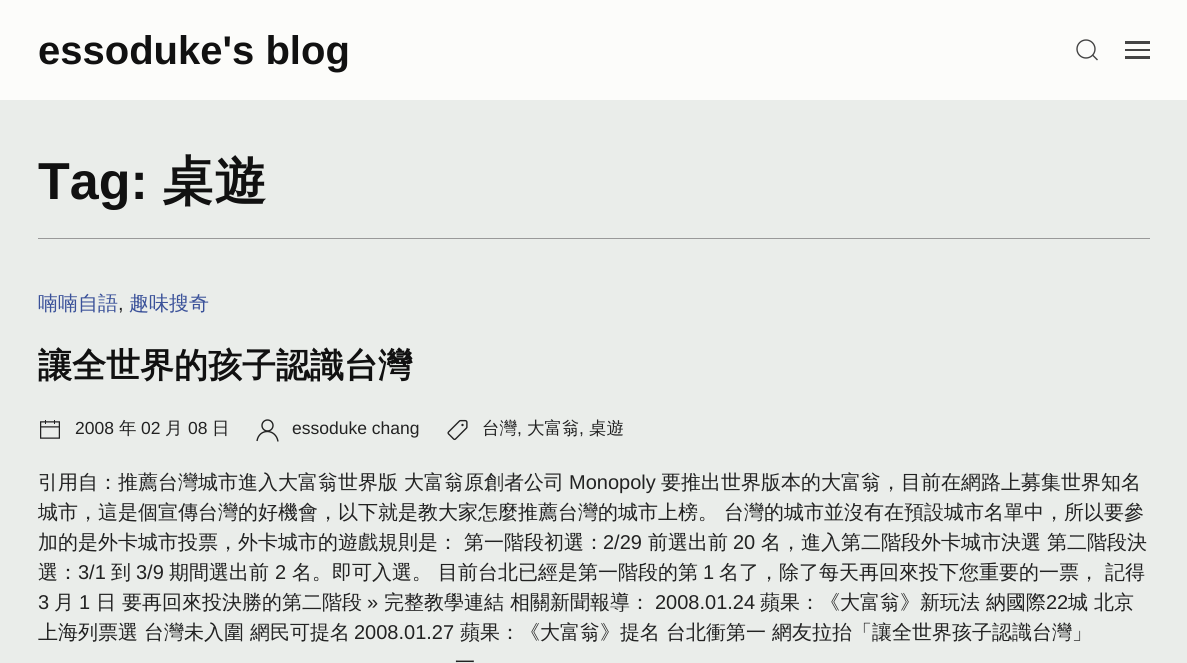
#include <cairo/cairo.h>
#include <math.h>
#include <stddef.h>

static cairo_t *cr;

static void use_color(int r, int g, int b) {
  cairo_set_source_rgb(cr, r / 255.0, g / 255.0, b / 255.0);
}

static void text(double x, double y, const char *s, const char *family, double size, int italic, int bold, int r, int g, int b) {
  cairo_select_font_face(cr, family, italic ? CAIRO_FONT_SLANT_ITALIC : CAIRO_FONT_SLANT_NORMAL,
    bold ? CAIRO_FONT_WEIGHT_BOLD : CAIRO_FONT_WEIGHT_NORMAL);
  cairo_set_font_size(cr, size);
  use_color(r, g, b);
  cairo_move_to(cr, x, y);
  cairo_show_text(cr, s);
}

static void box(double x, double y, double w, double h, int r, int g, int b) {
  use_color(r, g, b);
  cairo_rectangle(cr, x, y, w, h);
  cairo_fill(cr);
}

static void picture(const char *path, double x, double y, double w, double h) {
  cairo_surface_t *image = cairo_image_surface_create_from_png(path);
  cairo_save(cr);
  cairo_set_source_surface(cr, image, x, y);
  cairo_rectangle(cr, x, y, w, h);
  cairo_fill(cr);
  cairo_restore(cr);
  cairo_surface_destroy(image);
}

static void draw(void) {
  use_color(252, 252, 250);
  cairo_paint(cr);
  cairo_arc(cr, 1086, 49, 9, 0, 2 * M_PI);
  use_color(68, 68, 68);
  cairo_set_line_width(cr, 1.4);
  cairo_stroke(cr);
  cairo_new_path(cr);
  cairo_move_to(cr, 1092.5, 55);
  cairo_line_to(cr, 1097.5, 60);
  cairo_close_path(cr);
  cairo_stroke(cr);
  box(1125, 41, 25, 3, 68, 68, 68);
  box(1125, 49, 25, 2, 68, 68, 68);
  box(1125, 56, 25, 3, 68, 68, 68);
  box(0, 100, 1187, 563, 234, 237, 234);
  box(38, 238, 1112, 1, 153, 153, 153);
  picture("img_01.png", 40, 420, 20, 19);
  cairo_arc(cr, 267.5, 425.5, 5.5, 0, 2 * M_PI);
  use_color(34, 34, 34);
  cairo_stroke(cr);
  cairo_new_path(cr);
  cairo_move_to(cr, 257, 441);
  cairo_curve_to(cr, 259, 428, 276, 428.5, 278, 441.5);
  cairo_stroke(cr);
  picture("img_02.png", 447, 419, 21, 22);
  text(38, 64, "essoduke's blog", "Liberation Sans", 40, 0, 1, 17, 17, 17);
  text(38, 199, "Tag:", "Liberation Sans", 52, 0, 1, 17, 17, 17);
  text(162, 199, "桌遊", "WenQuanYi Zen Hei", 52, 0, 1, 17, 17, 17);
  text(38, 310, "喃喃自語", "WenQuanYi Zen Hei Medium", 20, 0, 0, 58, 81, 153);
  text(118, 310, ",", "Liberation Sans", 20, 0, 0, 34, 34, 34);
  text(129, 310, "趣味搜奇", "WenQuanYi Zen Hei Medium", 20, 0, 0, 58, 81, 153);
  text(38, 377, "讓全世界的孩子認識台灣", "WenQuanYi Zen Hei", 34, 0, 1, 17, 17, 17);
  text(75, 434, "2008", "Liberation Sans", 17.5, 0, 0, 34, 34, 34);
  text(119, 434, "年", "WenQuanYi Zen Hei Medium", 17.5, 0, 0, 34, 34, 34);
  text(141, 434, "02", "Liberation Sans", 17.5, 0, 0, 34, 34, 34);
  text(165, 434, "月", "WenQuanYi Zen Hei Medium", 17.5, 0, 0, 34, 34, 34);
  text(188, 434, "08", "Liberation Sans", 17.5, 0, 0, 34, 34, 34);
  text(212, 434, "日", "WenQuanYi Zen Hei Medium", 17.5, 0, 0, 34, 34, 34);
  text(292, 434, "essoduke chang", "Liberation Sans", 17.5, 0, 0, 34, 34, 34);
  text(482, 434, "台灣", "WenQuanYi Zen Hei Medium", 17.5, 0, 0, 34, 34, 34);
  text(517, 434, ",", "Liberation Sans", 17.5, 0, 0, 34, 34, 34);
  text(527, 434, "大富翁", "WenQuanYi Zen Hei Medium", 17.5, 0, 0, 34, 34, 34);
  text(579, 434, ",", "Liberation Sans", 17.5, 0, 0, 34, 34, 34);
  text(589, 434, "桌遊", "WenQuanYi Zen Hei Medium", 17.5, 0, 0, 34, 34, 34);
  text(38, 489, "引用自：推薦台灣城市進入大富翁世界版 大富翁原創者公司", "WenQuanYi Zen Hei Medium", 20, 0, 0, 34, 34, 34);
  text(569, 489, "Monopoly", "Liberation Sans", 20, 0, 0, 34, 34, 34);
  text(661, 489, "要推出世界版本的大富翁，目前在網路上募集世界知名", "WenQuanYi Zen Hei Medium", 20, 0, 0, 34, 34, 34);
  text(38, 519, "城市，這是個宣傳台灣的好機會，以下就是教大家怎麼推薦台灣的城市上榜。 台灣的城市並沒有在預設城市名單中，所以要參", "WenQuanYi Zen Hei Medium", 20, 0, 0, 34, 34, 34);
  text(38, 549, "加的是外卡城市投票，外卡城市的遊戲規則是： 第一階段初選：", "WenQuanYi Zen Hei Medium", 20, 0, 0, 34, 34, 34);
  text(603, 549, "2/29", "Liberation Sans", 20, 0, 0, 34, 34, 34);
  text(648, 549, "前選出前", "WenQuanYi Zen Hei Medium", 20, 0, 0, 34, 34, 34);
  text(733, 549, "20", "Liberation Sans", 20, 0, 0, 34, 34, 34);
  text(761, 549, "名，進入第二階段外卡城市決選 第二階段決", "WenQuanYi Zen Hei Medium", 20, 0, 0, 34, 34, 34);
  text(38, 579, "選：", "WenQuanYi Zen Hei Medium", 20, 0, 0, 34, 34, 34);
  text(78, 579, "3/1", "Liberation Sans", 20, 0, 0, 34, 34, 34);
  text(111, 579, "到", "WenQuanYi Zen Hei Medium", 20, 0, 0, 34, 34, 34);
  text(136, 579, "3/9", "Liberation Sans", 20, 0, 0, 34, 34, 34);
  text(169, 579, "期間選出前", "WenQuanYi Zen Hei Medium", 20, 0, 0, 34, 34, 34);
  text(275, 579, "2", "Liberation Sans", 20, 0, 0, 34, 34, 34);
  text(292, 579, "名。即可入選。 目前台北已經是第一階段的第", "WenQuanYi Zen Hei Medium", 20, 0, 0, 34, 34, 34);
  text(703, 579, "1", "Liberation Sans", 20, 0, 0, 34, 34, 34);
  text(719, 579, "名了，除了每天再回來投下您重要的一票， 記得", "WenQuanYi Zen Hei Medium", 20, 0, 0, 34, 34, 34);
  text(38, 609, "3", "Liberation Sans", 20, 0, 0, 34, 34, 34);
  text(54, 609, "月", "WenQuanYi Zen Hei Medium", 20, 0, 0, 34, 34, 34);
  text(79, 609, "1", "Liberation Sans", 20, 0, 0, 34, 34, 34);
  text(96, 609, "日 要再回來投決勝的第二階段", "WenQuanYi Zen Hei Medium", 20, 0, 0, 34, 34, 34);
  text(367, 609, "»", "Liberation Sans", 20, 0, 0, 34, 34, 34);
  text(384, 609, "完整教學連結 相關新聞報導：", "WenQuanYi Zen Hei Medium", 20, 0, 0, 34, 34, 34);
  text(655, 609, "2008.01.24", "Liberation Sans", 20, 0, 0, 34, 34, 34);
  text(760, 609, "蘋果：《大富翁》新玩法 納國際", "WenQuanYi Zen Hei Medium", 20, 0, 0, 34, 34, 34);
  text(1046, 609, "22", "Liberation Sans", 20, 0, 0, 34, 34, 34);
  text(1068, 609, "城 北京", "WenQuanYi Zen Hei Medium", 20, 0, 0, 34, 34, 34);
  text(38, 639, "上海列票選 台灣未入圍 網民可提名", "WenQuanYi Zen Hei Medium", 20, 0, 0, 34, 34, 34);
  text(354, 639, "2008.01.27", "Liberation Sans", 20, 0, 0, 34, 34, 34);
  text(460, 639, "蘋果：《大富翁》提名 台北衝第一 網友拉抬「讓全世界孩子認識台灣」", "WenQuanYi Zen Hei Medium", 20, 0, 0, 34, 34, 34);
  text(455, 669, "一", "WenQuanYi Zen Hei Medium", 20, 0, 0, 34, 34, 34);
}

int main(void) {
  cairo_surface_t *surface = cairo_image_surface_create(CAIRO_FORMAT_RGB24, 1187, 663);
  cr = cairo_create(surface);
  cairo_font_options_t *options = cairo_font_options_create();
  cairo_font_options_set_hint_metrics(options, CAIRO_HINT_METRICS_OFF);
  cairo_font_options_set_hint_style(options, CAIRO_HINT_STYLE_NONE);
  cairo_set_font_options(cr, options);
  cairo_set_miter_limit(cr, 4);
  draw();
  cairo_surface_write_to_png(surface, "out.png");
  cairo_font_options_destroy(options);
  cairo_destroy(cr);
  cairo_surface_destroy(surface);
  return 0;
}
